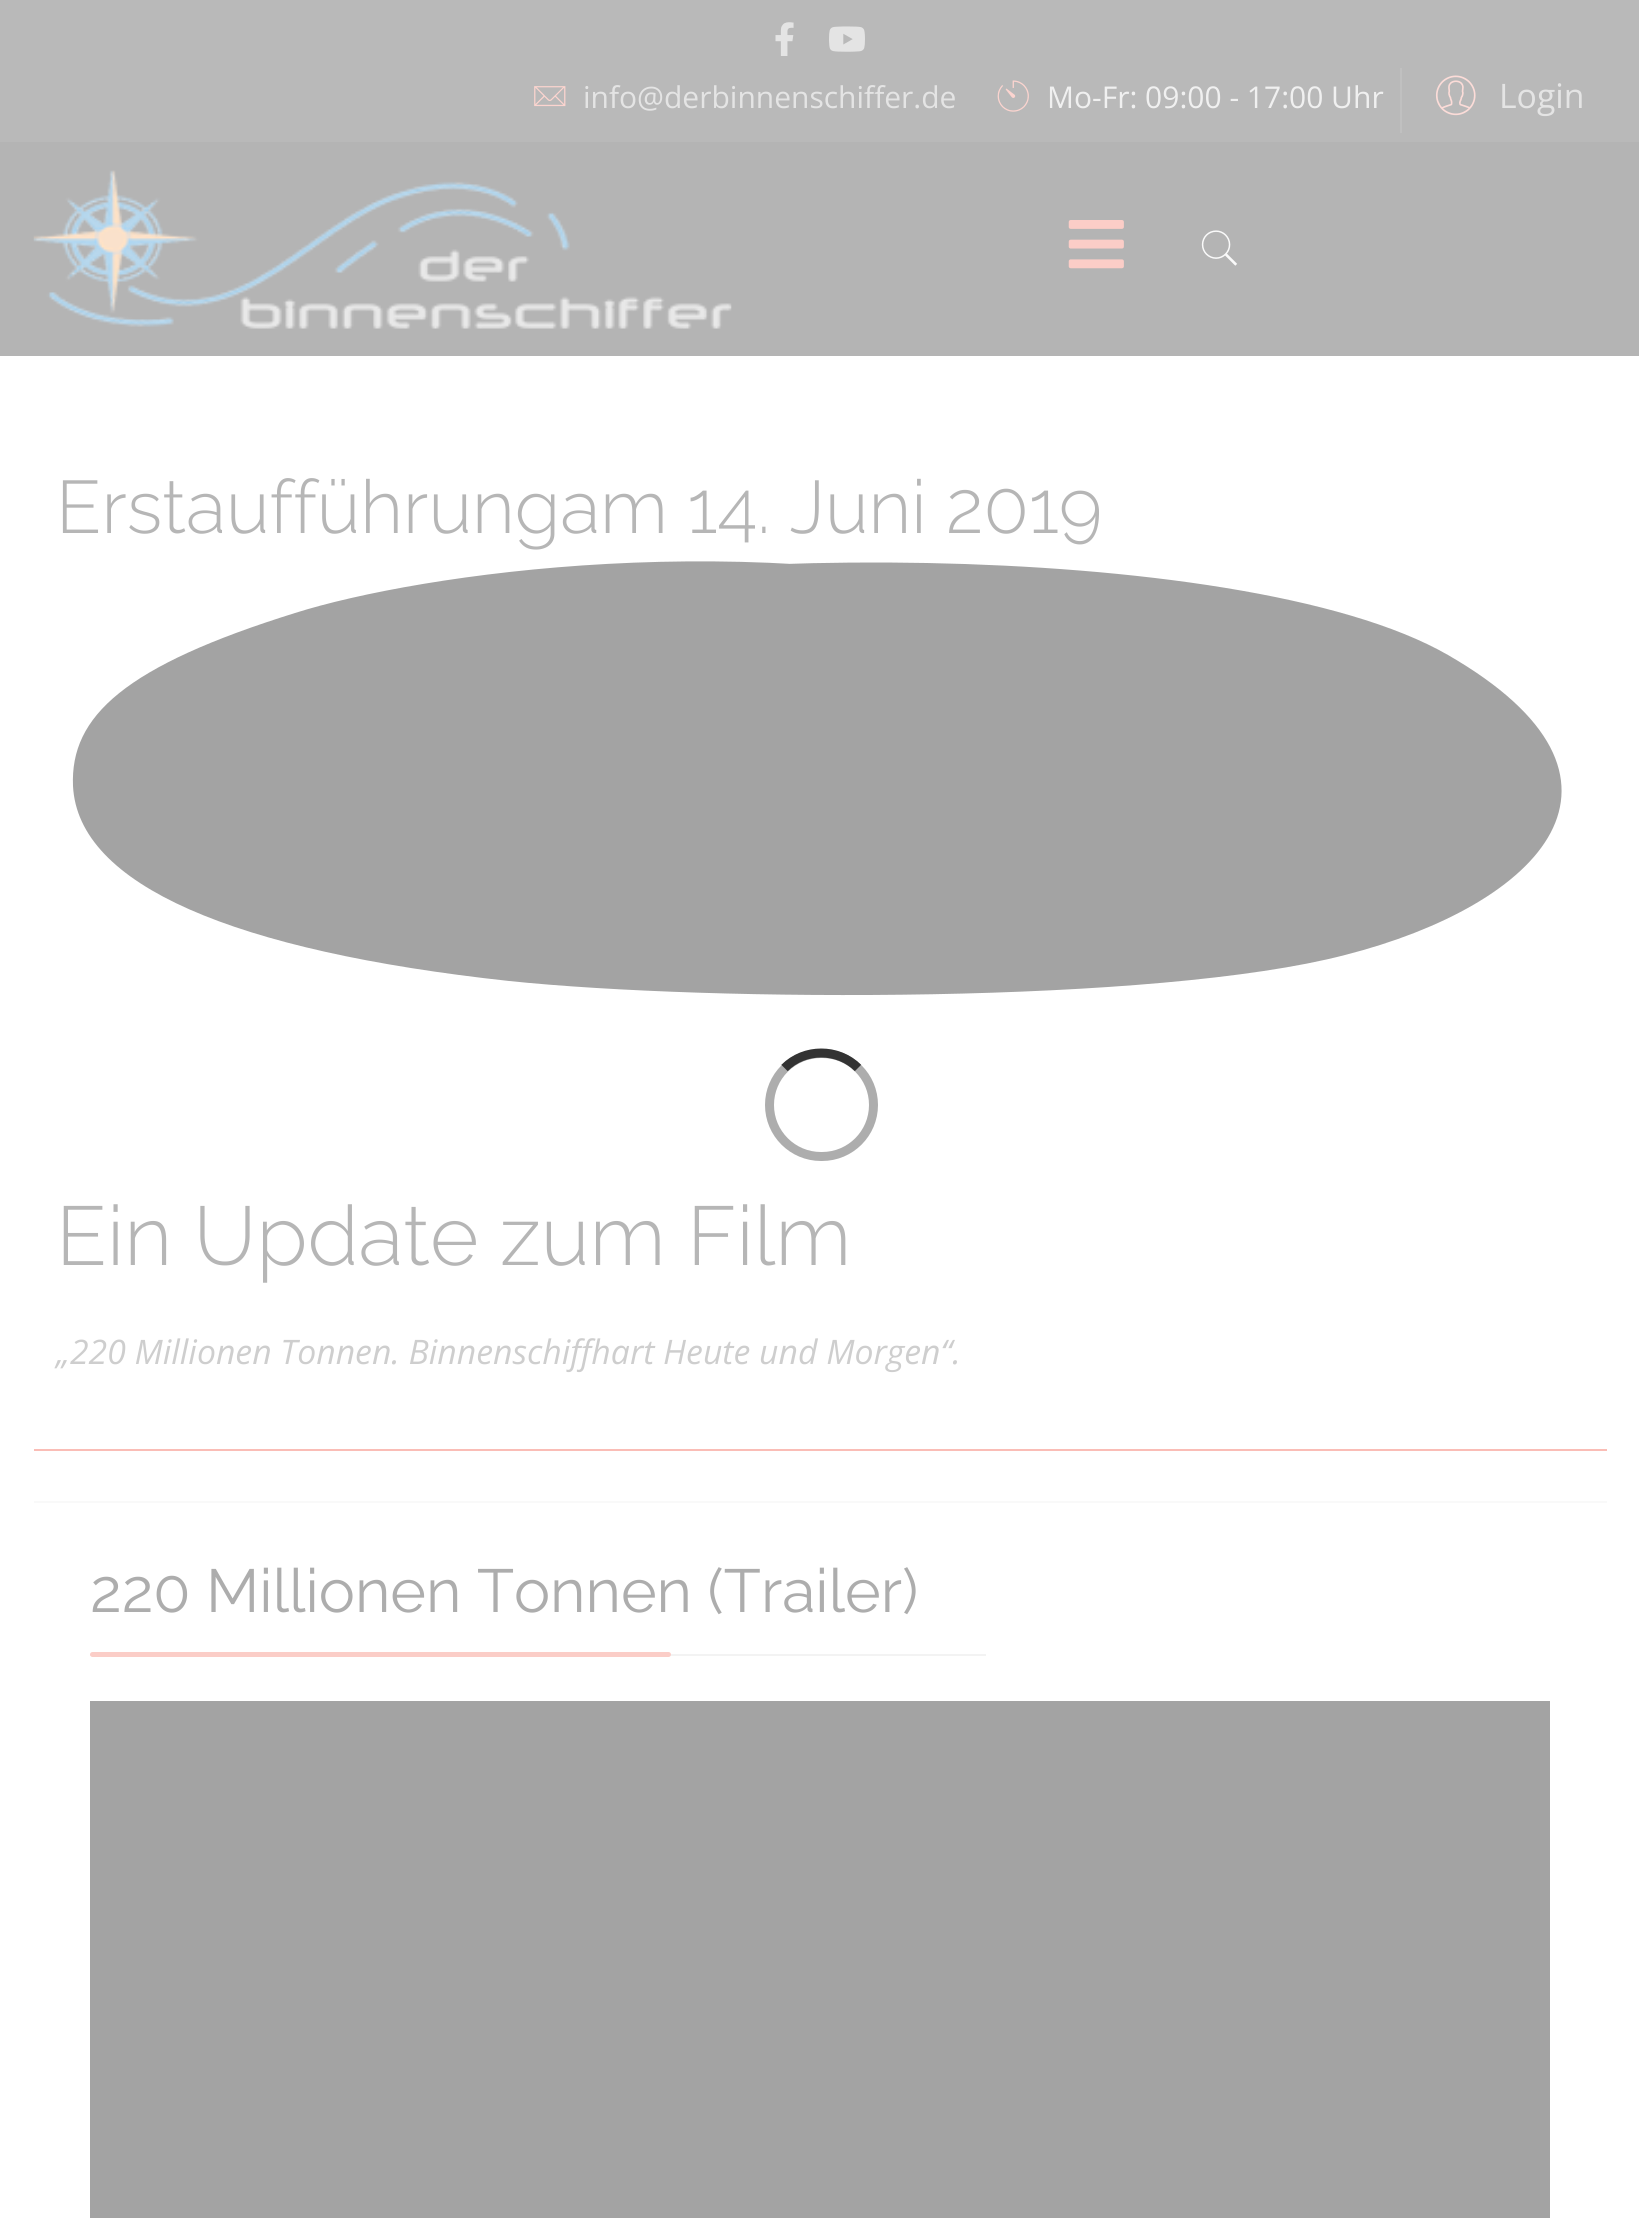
#include <cairo/cairo.h>
#include <math.h>
#include <stddef.h>

static cairo_t *cr;

static void use_color(int r, int g, int b) {
  cairo_set_source_rgb(cr, r / 255.0, g / 255.0, b / 255.0);
}

static void text(double x, double y, const char *s, const char *family, double size, int italic, int bold, int r, int g, int b) {
  cairo_select_font_face(cr, family, italic ? CAIRO_FONT_SLANT_ITALIC : CAIRO_FONT_SLANT_NORMAL,
    bold ? CAIRO_FONT_WEIGHT_BOLD : CAIRO_FONT_WEIGHT_NORMAL);
  cairo_set_font_size(cr, size);
  use_color(r, g, b);
  cairo_move_to(cr, x, y);
  cairo_show_text(cr, s);
}

static void box(double x, double y, double w, double h, int r, int g, int b) {
  use_color(r, g, b);
  cairo_rectangle(cr, x, y, w, h);
  cairo_fill(cr);
}

static void round_rect(double x, double y, double w, double h, double r) {
  cairo_new_sub_path(cr);
  cairo_arc(cr, x + w - r, y + h - r, r, 0, M_PI / 2);
  cairo_arc(cr, x + r, y + h - r, r, M_PI / 2, M_PI);
  cairo_arc(cr, x + r, y + r, r, M_PI, 1.5 * M_PI);
  cairo_arc(cr, x + w - r, y + r, r, 1.5 * M_PI, 2 * M_PI);
  cairo_close_path(cr);
}

static void picture(const char *path, double x, double y, double w, double h) {
  cairo_surface_t *image = cairo_image_surface_create_from_png(path);
  cairo_save(cr);
  cairo_set_source_surface(cr, image, x, y);
  cairo_rectangle(cr, x, y, w, h);
  cairo_fill(cr);
  cairo_restore(cr);
  cairo_surface_destroy(image);
}

static void draw(void) {
  use_color(255, 255, 255);
  cairo_paint(cr);
  box(0, 0, 1639, 142, 185, 185, 185);
  picture("img_01.png", 775, 22, 19, 34);
  picture("img_02.png", 829, 26, 36, 26);
  picture("img_03.png", 534, 86, 32, 21);
  picture("img_04.png", 997, 80, 32, 32);
  box(1400, 68, 2, 65, 192, 192, 192);
  picture("img_05.png", 1435, 75, 41, 41);
  box(0, 142, 1639, 214, 180, 180, 180);
  picture("img_06.png", 33, 170, 699, 159);
  picture("img_07.png", 1068, 220, 56, 49);
  picture("img_08.png", 1201, 230, 37, 36);
  use_color(163, 163, 163);
  cairo_new_path(cr);
  cairo_move_to(cr, 1049, 604);
  cairo_curve_to(cr, 755, 524, 418, 574, 295, 613);
  cairo_curve_to(cr, 125, 666, 70, 716, 73, 786);
  cairo_curve_to(cr, 78, 885, 233, 951, 509, 981);
  cairo_curve_to(cr, 711, 1002, 1157, 1004, 1345, 955);
  cairo_curve_to(cr, 1541, 905, 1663, 779, 1448, 655);
  cairo_curve_to(cr, 1238, 534, 604, 545, 442, 612);
  cairo_fill(cr);
  box(34, 1449, 1573, 2, 250, 189, 182);
  box(34, 1501, 1573, 2, 249, 249, 249);
  box(90, 1654, 896, 2, 243, 243, 243);
  use_color(251, 205, 199);
  round_rect(90, 1652, 581, 5, 2.5);
  cairo_fill(cr);
  box(90, 1701, 1460, 517, 163, 163, 163);
  round_rect(769.5, 1053.5, 104, 103, 51.5);
  use_color(173, 173, 173);
  cairo_set_line_width(cr, 9);
  cairo_stroke(cr);
  cairo_new_path(cr);
  cairo_move_to(cr, 784.5, 1068);
  cairo_curve_to(cr, 804.5, 1048, 838, 1048, 858, 1068);
  use_color(51, 51, 51);
  cairo_stroke(cr);
  text(583, 108, "info@derbinnenschiffer.de", "Open Sans", 30, 0, 0, 228, 228, 228);
  text(1047, 108, "Mo-Fr: 09:00 - 17:00 Uhr", "Open Sans", 30, 0, 0, 240, 240, 240);
  text(1499, 108, "Login", "Open Sans", 33.75, 0, 0, 228, 228, 228);
  text(56, 533, "Erstaufführungam 14. Juni 2019", "Raleway Light", 74.25, 0, 0, 182, 182, 182);
  text(56, 1265, "Ein Update zum Film", "Raleway Light", 83.25, 0, 0, 182, 182, 182);
  text(56, 1364, "„220 Millionen Tonnen. Binnenschiffhart Heute und Morgen“.", "Open Sans", 33.75, 1, 0, 206, 206, 206);
  text(90, 1612, "220 Millionen Tonnen (Trailer)", "Raleway", 60.75, 0, 0, 173, 173, 173);
}

int main(void) {
  cairo_surface_t *surface = cairo_image_surface_create(CAIRO_FORMAT_RGB24, 1639, 2218);
  cr = cairo_create(surface);
  cairo_font_options_t *options = cairo_font_options_create();
  cairo_font_options_set_hint_metrics(options, CAIRO_HINT_METRICS_OFF);
  cairo_font_options_set_hint_style(options, CAIRO_HINT_STYLE_NONE);
  cairo_set_font_options(cr, options);
  cairo_set_miter_limit(cr, 4);
  draw();
  cairo_surface_write_to_png(surface, "out.png");
  cairo_font_options_destroy(options);
  cairo_destroy(cr);
  cairo_surface_destroy(surface);
  return 0;
}
